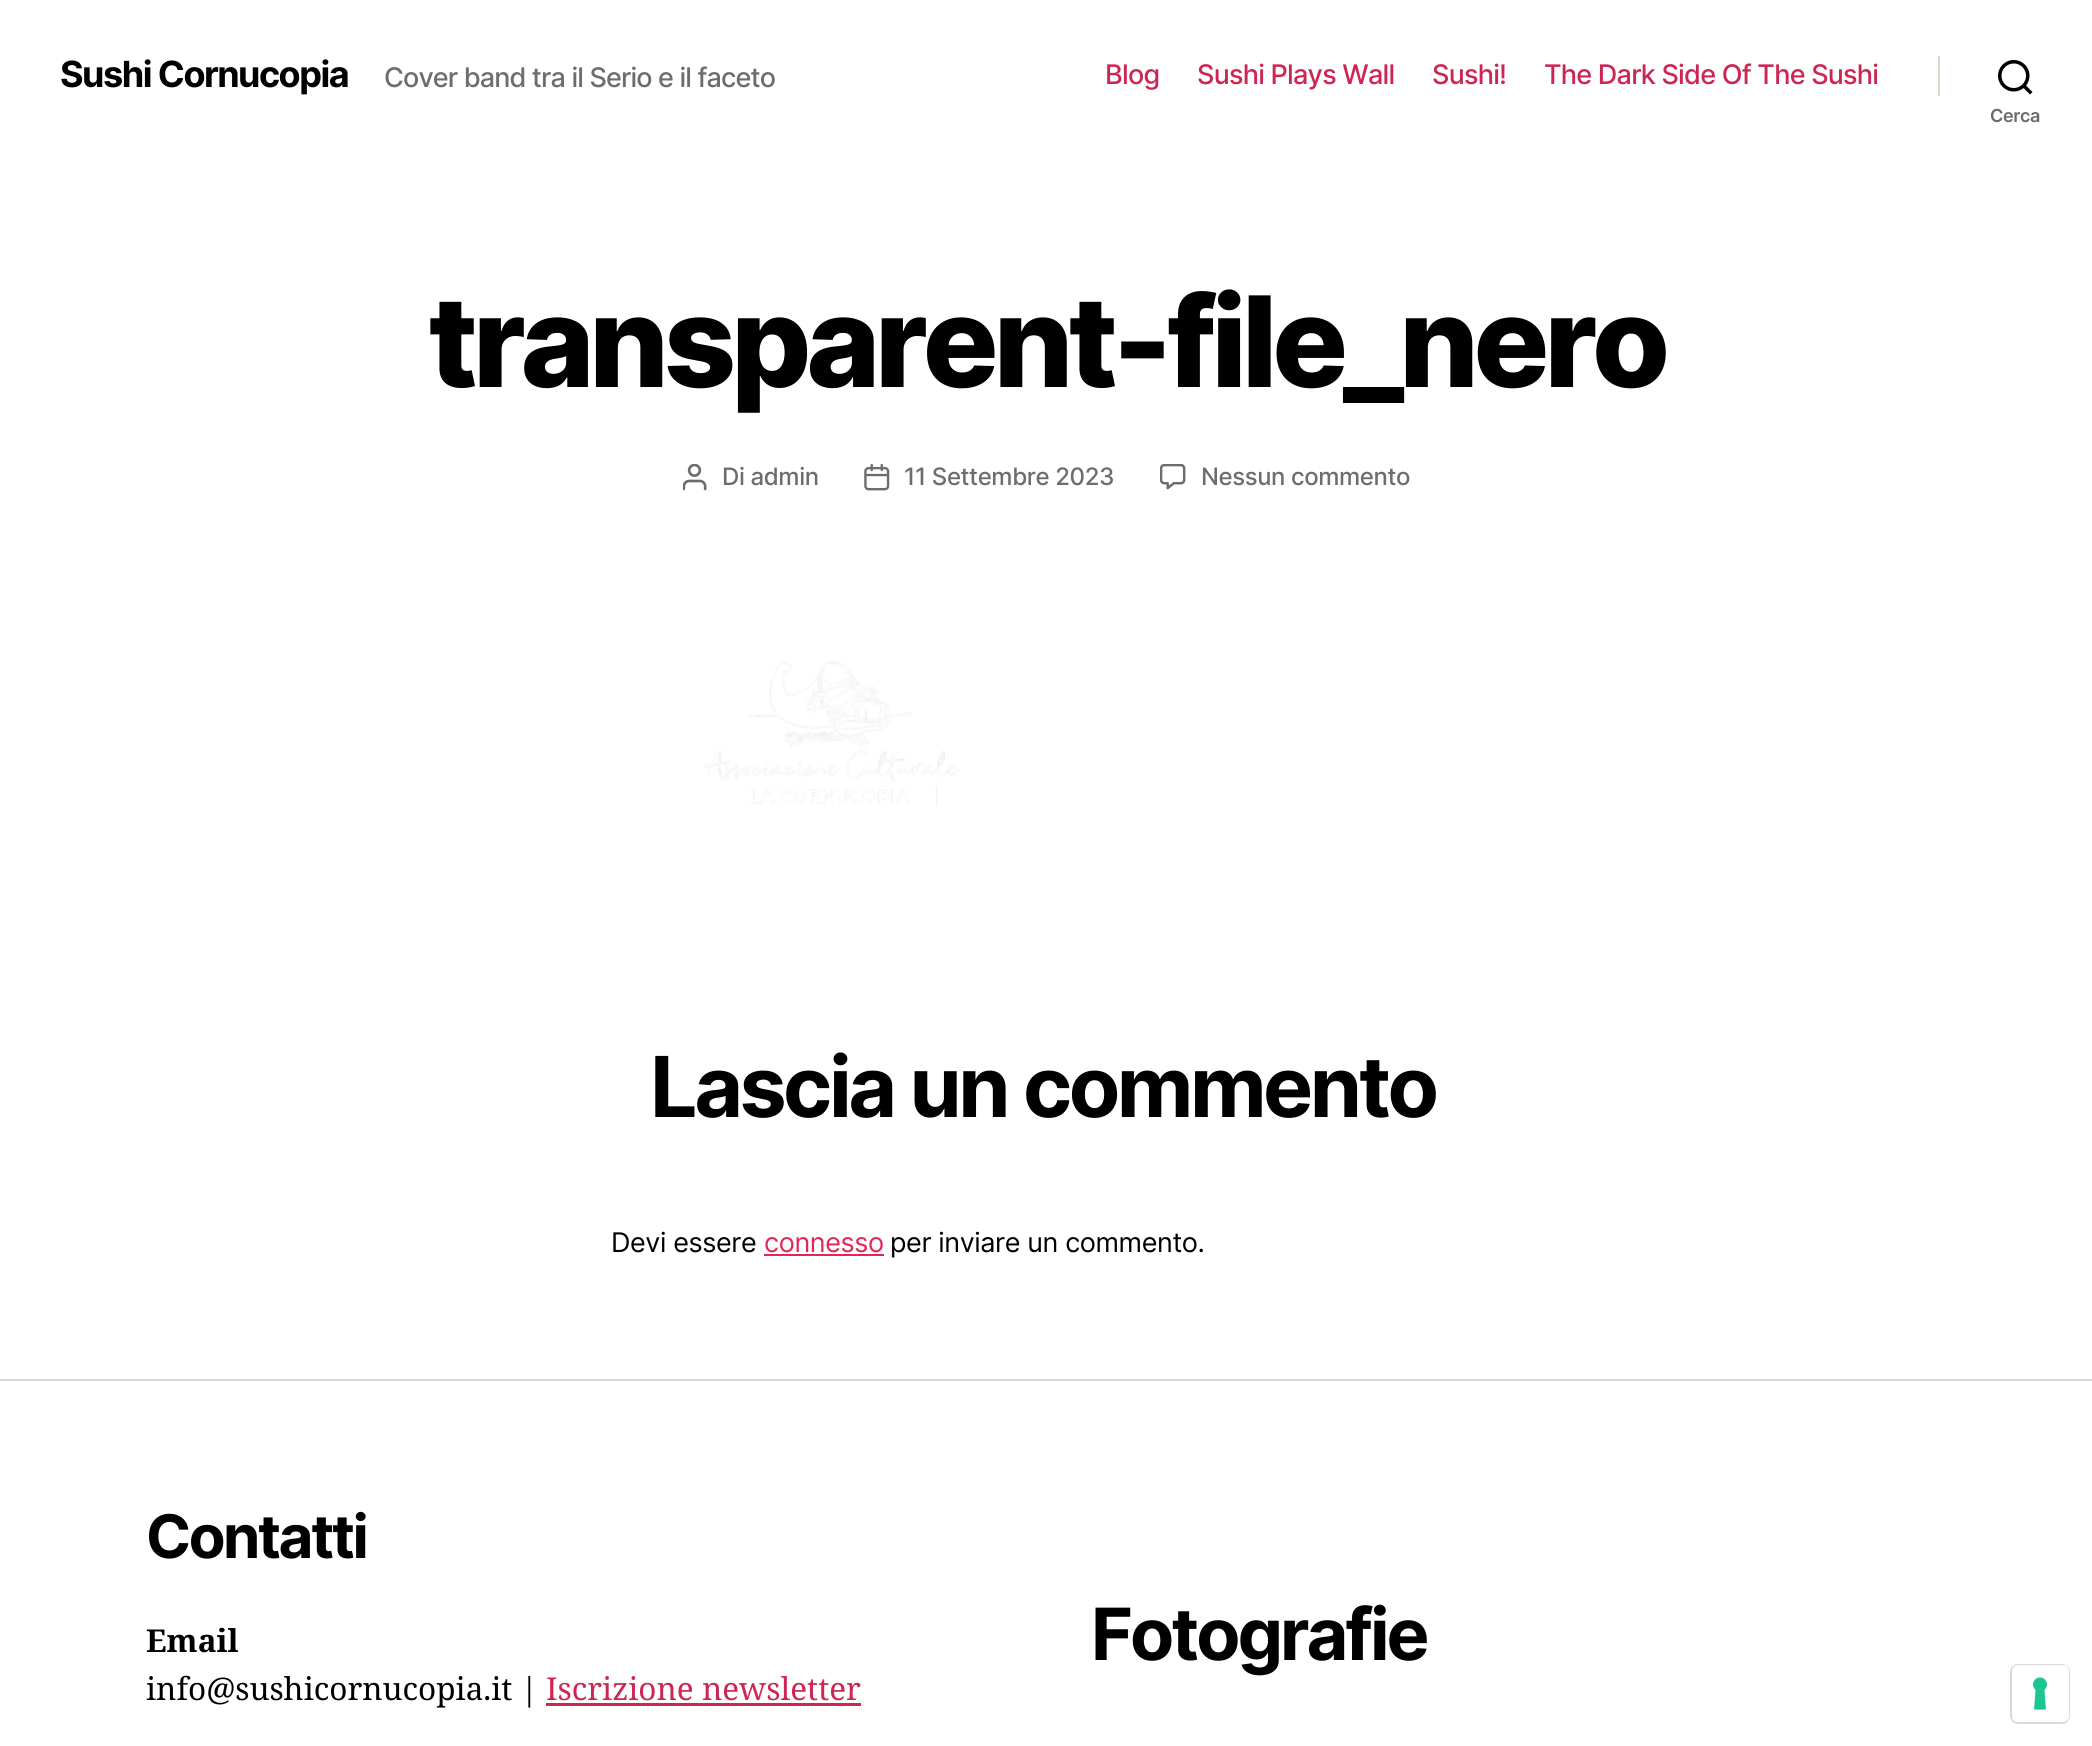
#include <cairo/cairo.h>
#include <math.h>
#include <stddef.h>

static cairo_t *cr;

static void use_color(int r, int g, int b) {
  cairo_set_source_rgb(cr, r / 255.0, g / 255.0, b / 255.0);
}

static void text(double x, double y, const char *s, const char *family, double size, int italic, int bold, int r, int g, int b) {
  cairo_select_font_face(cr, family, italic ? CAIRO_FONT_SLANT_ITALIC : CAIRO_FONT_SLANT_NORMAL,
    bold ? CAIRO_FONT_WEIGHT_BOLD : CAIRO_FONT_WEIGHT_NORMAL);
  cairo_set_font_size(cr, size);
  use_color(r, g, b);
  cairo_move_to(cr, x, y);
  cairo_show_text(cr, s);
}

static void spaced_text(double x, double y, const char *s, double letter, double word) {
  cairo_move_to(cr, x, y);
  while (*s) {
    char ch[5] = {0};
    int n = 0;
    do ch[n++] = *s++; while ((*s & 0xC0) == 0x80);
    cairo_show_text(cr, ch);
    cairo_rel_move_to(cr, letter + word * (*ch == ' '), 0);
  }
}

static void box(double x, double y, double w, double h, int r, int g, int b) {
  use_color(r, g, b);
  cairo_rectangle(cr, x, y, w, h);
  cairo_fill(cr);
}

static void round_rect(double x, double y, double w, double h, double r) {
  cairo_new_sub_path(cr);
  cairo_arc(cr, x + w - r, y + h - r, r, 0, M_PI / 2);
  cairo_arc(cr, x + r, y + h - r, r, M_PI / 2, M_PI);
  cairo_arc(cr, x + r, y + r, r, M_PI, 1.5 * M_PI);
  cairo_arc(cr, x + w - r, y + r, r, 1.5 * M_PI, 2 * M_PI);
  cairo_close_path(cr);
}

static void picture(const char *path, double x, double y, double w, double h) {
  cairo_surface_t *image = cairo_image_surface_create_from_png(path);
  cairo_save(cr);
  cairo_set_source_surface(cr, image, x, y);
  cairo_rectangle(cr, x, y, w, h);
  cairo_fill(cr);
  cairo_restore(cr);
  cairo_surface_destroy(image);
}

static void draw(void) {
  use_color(255, 255, 255);
  cairo_paint(cr);
  box(1938, 56, 2, 40, 220, 215, 202);
  picture("img_01.png", 1998, 60, 35, 35);
  picture("img_02.png", 683, 464, 24, 27);
  picture("img_03.png", 864, 464, 26, 27);
  picture("img_04.png", 1160, 464, 26, 26);
  picture("img_05.png", 703, 660, 256, 147);
  box(764, 1254, 120, 2, 226, 38, 88);
  box(0, 1379, 2092, 2, 220, 215, 202);
  box(546, 1703, 315, 3, 205, 38, 83);
  round_rect(2011, 1665, 58, 58, 7);
  use_color(217, 217, 217);
  cairo_stroke(cr);
  use_color(255, 255, 255);
  round_rect(2012, 1665, 57, 57, 6);
  cairo_fill(cr);
  use_color(28, 198, 145);
  cairo_set_fill_rule(cr, CAIRO_FILL_RULE_EVEN_ODD);
  cairo_new_path(cr);
  cairo_move_to(cr, 2040, 1677.5);
  cairo_curve_to(cr, 2046.5, 1677.5, 2049.5, 1685.5, 2044.5, 1690);
  cairo_line_to(cr, 2046, 1709.5);
  cairo_line_to(cr, 2034, 1709.5);
  cairo_line_to(cr, 2035.5, 1690);
  cairo_curve_to(cr, 2030.5, 1685.5, 2033.5, 1677.5, 2040, 1677.5);
  cairo_close_path(cr);
  cairo_fill(cr);
  cairo_select_font_face(cr, "Inter", CAIRO_FONT_SLANT_NORMAL, CAIRO_FONT_WEIGHT_BOLD);
  cairo_set_font_size(cr, 36);
  use_color(0, 0, 0);
  spaced_text(60, 87, "Sushi Cornucopia", -1.5, 0);
  cairo_select_font_face(cr, "Inter Medium", CAIRO_FONT_SLANT_NORMAL, CAIRO_FONT_WEIGHT_NORMAL);
  cairo_set_font_size(cr, 27);
  use_color(109, 109, 109);
  spaced_text(384, 87, "Cover band tra il Serio e il faceto", -0.85, 0);
  use_color(205, 38, 83);
  spaced_text(1105, 84, "Blog", -0.75, 0);
  spaced_text(1197, 84, "Sushi Plays Wall", -0.75, 0);
  spaced_text(1432, 84, "Sushi!", -0.75, 0);
  spaced_text(1544, 84, "The Dark Side Of The Sushi", -0.75, 0);
  cairo_select_font_face(cr, "Inter SemiBold", CAIRO_FONT_SLANT_NORMAL, CAIRO_FONT_WEIGHT_NORMAL);
  cairo_set_font_size(cr, 18);
  use_color(109, 109, 109);
  spaced_text(1990, 122, "Cerca", -0.4, 0);
  cairo_select_font_face(cr, "Inter ExtraBold", CAIRO_FONT_SLANT_NORMAL, CAIRO_FONT_WEIGHT_NORMAL);
  cairo_set_font_size(cr, 126);
  use_color(0, 0, 0);
  spaced_text(428, 387, "transparent-file_nero", -5.25, 0);
  cairo_select_font_face(cr, "Inter Medium", CAIRO_FONT_SLANT_NORMAL, CAIRO_FONT_WEIGHT_NORMAL);
  cairo_set_font_size(cr, 24);
  use_color(109, 109, 109);
  spaced_text(722, 485, "Di admin", -0.4, 0);
  spaced_text(904, 485, "11 Settembre 2023", -0.4, 0);
  spaced_text(1201, 485, "Nessun commento", -0.4, 0);
  cairo_select_font_face(cr, "Inter", CAIRO_FONT_SLANT_NORMAL, CAIRO_FONT_WEIGHT_BOLD);
  cairo_set_font_size(cr, 84);
  use_color(0, 0, 0);
  spaced_text(650, 1117, "Lascia un commento", -3.5, 0);
  cairo_select_font_face(cr, "Inter", CAIRO_FONT_SLANT_NORMAL, CAIRO_FONT_WEIGHT_NORMAL);
  cairo_set_font_size(cr, 27);
  spaced_text(611, 1252, "Devi essere", -0.4, 0);
  use_color(226, 38, 88);
  spaced_text(764, 1252, "connesso", -0.4, 0);
  use_color(0, 0, 0);
  spaced_text(890, 1252, "per inviare un commento.", -0.4, 0);
  cairo_select_font_face(cr, "Inter", CAIRO_FONT_SLANT_NORMAL, CAIRO_FONT_WEIGHT_BOLD);
  cairo_set_font_size(cr, 60);
  spaced_text(146, 1558, "Contatti", -2.5, 0);
  text(146, 1652, "Email", "Noto Serif", 31.5, 0, 1, 0, 0, 0);
  text(146, 1700, "info@sushicornucopia.it |", "Noto Serif", 31.5, 0, 0, 0, 0, 0);
  text(546, 1700, "Iscrizione newsletter", "Noto Serif", 31.5, 0, 0, 205, 38, 83);
  cairo_select_font_face(cr, "Inter", CAIRO_FONT_SLANT_NORMAL, CAIRO_FONT_WEIGHT_BOLD);
  cairo_set_font_size(cr, 72);
  use_color(0, 0, 0);
  spaced_text(1091, 1660, "Fotografie", -3, 0);
}

int main(void) {
  cairo_surface_t *surface = cairo_image_surface_create(CAIRO_FORMAT_RGB24, 2092, 1746);
  cr = cairo_create(surface);
  cairo_font_options_t *options = cairo_font_options_create();
  cairo_font_options_set_hint_metrics(options, CAIRO_HINT_METRICS_OFF);
  cairo_font_options_set_hint_style(options, CAIRO_HINT_STYLE_NONE);
  cairo_set_font_options(cr, options);
  cairo_set_miter_limit(cr, 4);
  draw();
  cairo_surface_write_to_png(surface, "out.png");
  cairo_font_options_destroy(options);
  cairo_destroy(cr);
  cairo_surface_destroy(surface);
  return 0;
}
